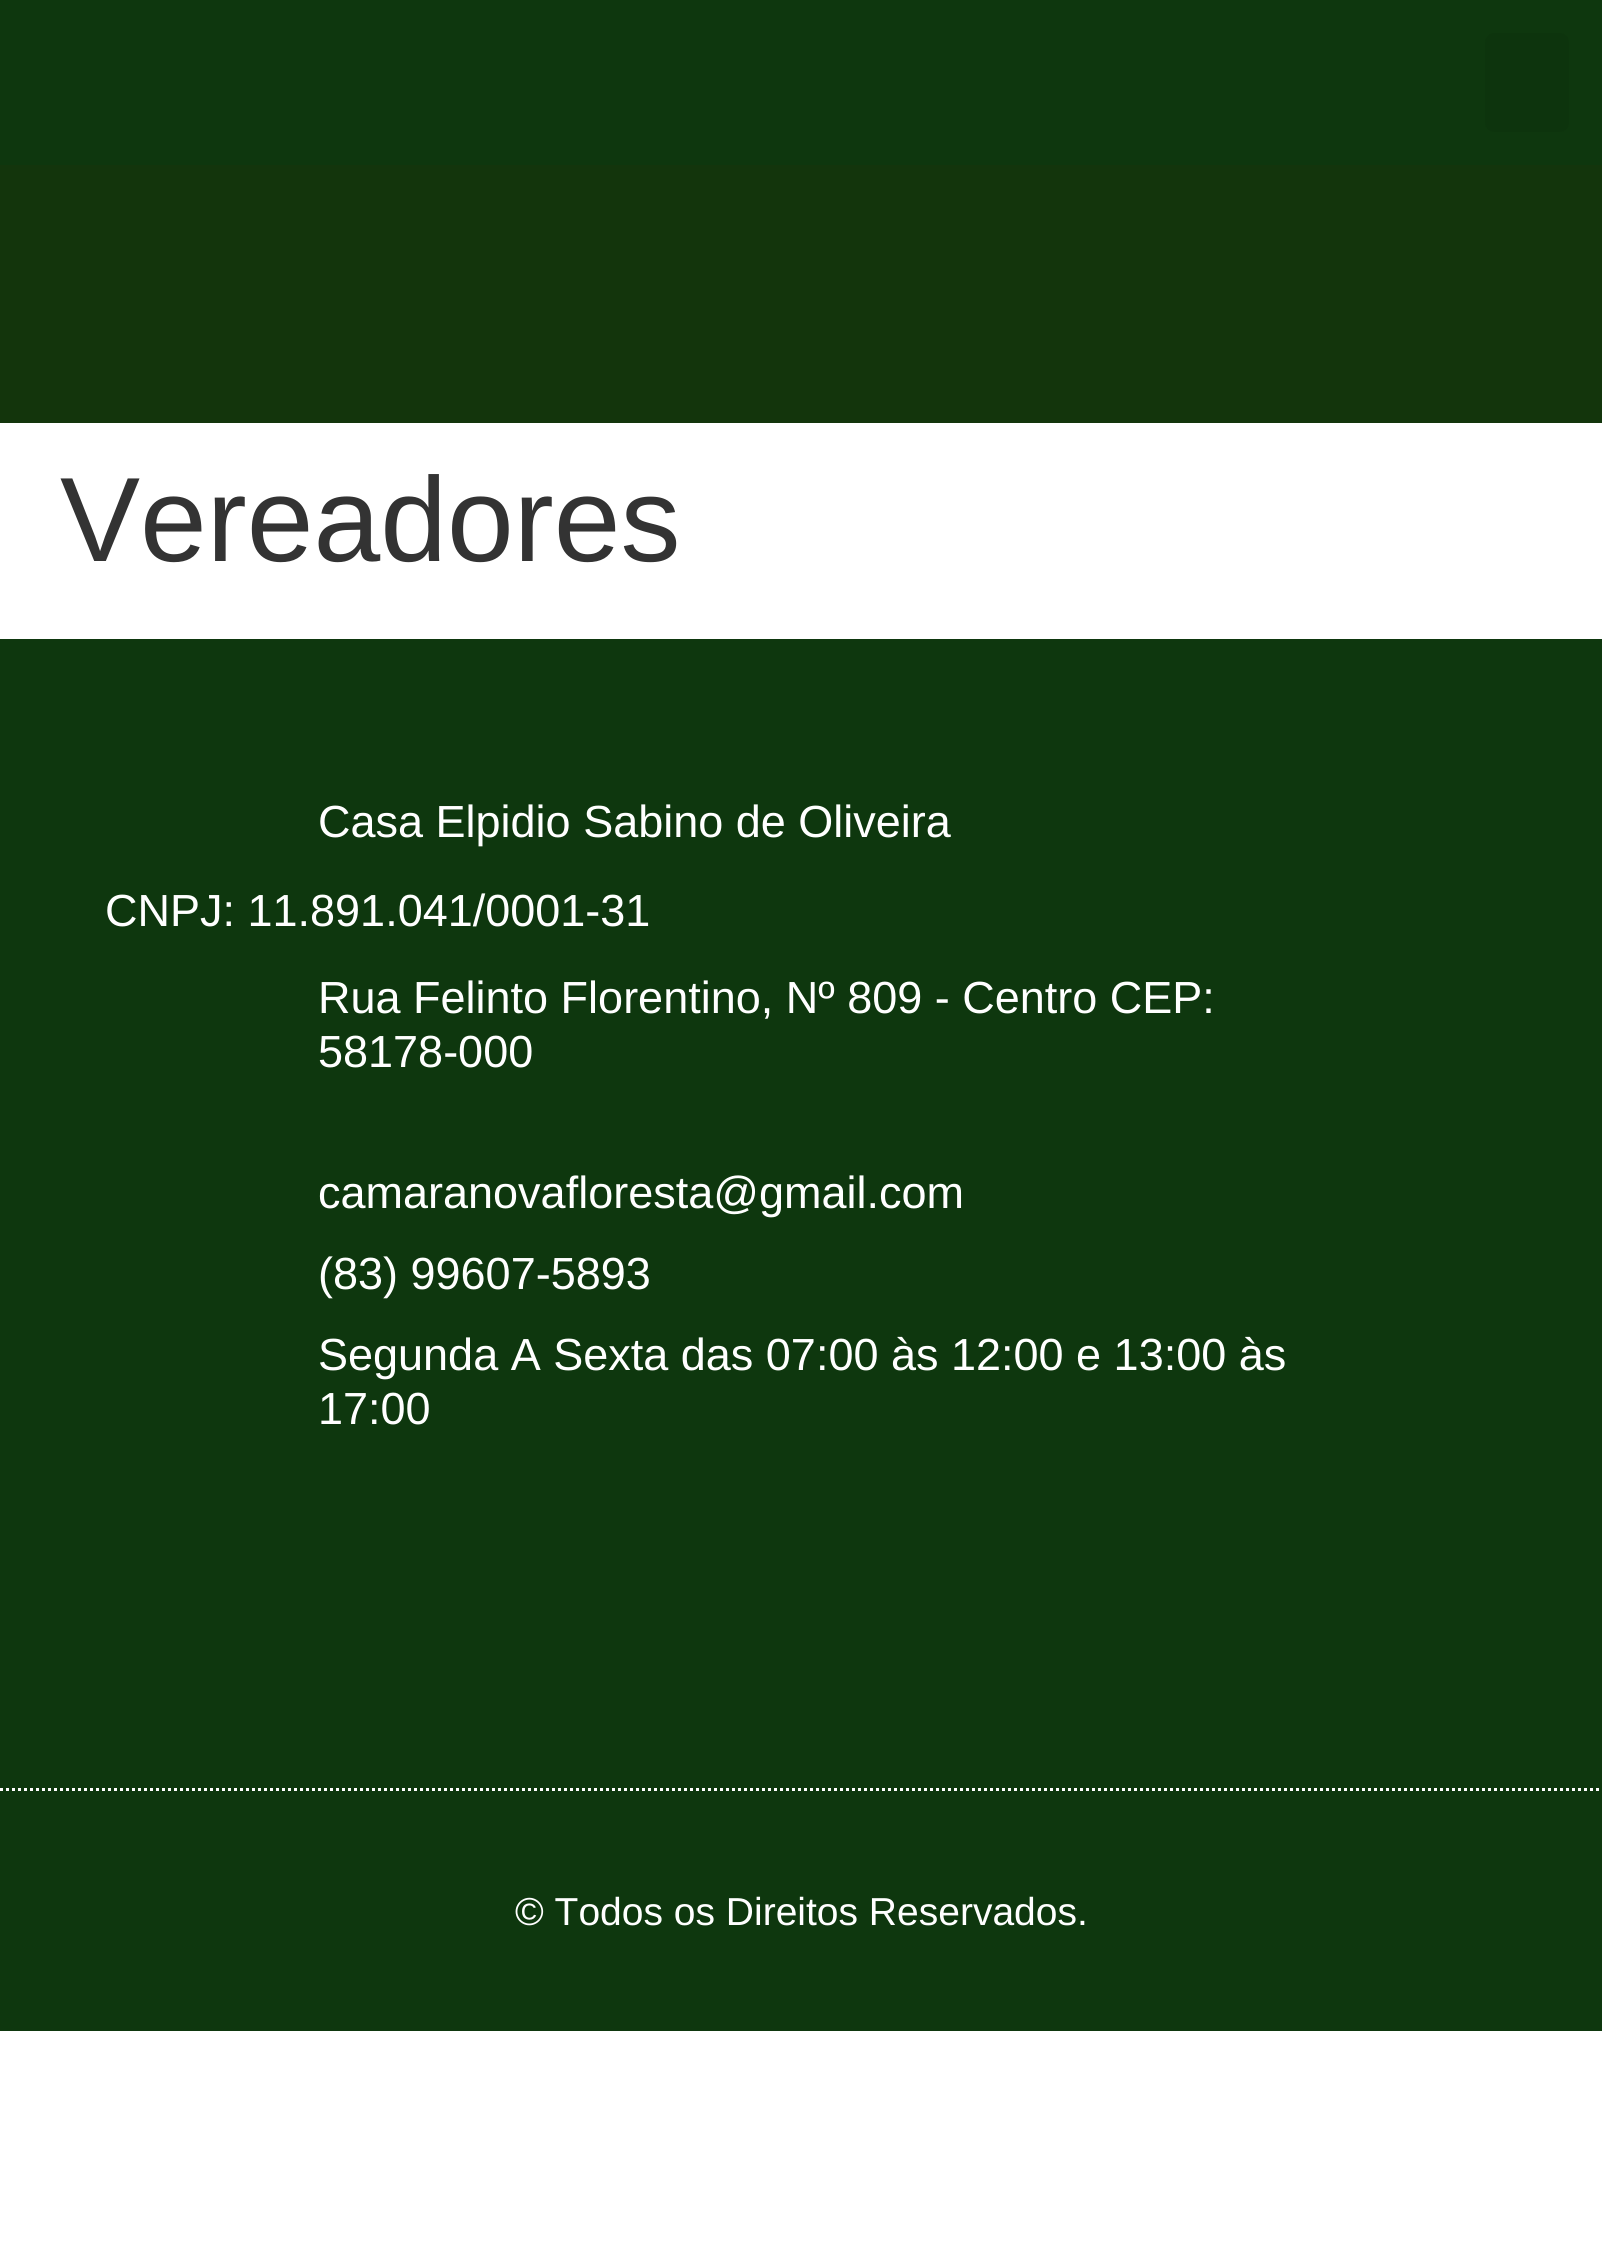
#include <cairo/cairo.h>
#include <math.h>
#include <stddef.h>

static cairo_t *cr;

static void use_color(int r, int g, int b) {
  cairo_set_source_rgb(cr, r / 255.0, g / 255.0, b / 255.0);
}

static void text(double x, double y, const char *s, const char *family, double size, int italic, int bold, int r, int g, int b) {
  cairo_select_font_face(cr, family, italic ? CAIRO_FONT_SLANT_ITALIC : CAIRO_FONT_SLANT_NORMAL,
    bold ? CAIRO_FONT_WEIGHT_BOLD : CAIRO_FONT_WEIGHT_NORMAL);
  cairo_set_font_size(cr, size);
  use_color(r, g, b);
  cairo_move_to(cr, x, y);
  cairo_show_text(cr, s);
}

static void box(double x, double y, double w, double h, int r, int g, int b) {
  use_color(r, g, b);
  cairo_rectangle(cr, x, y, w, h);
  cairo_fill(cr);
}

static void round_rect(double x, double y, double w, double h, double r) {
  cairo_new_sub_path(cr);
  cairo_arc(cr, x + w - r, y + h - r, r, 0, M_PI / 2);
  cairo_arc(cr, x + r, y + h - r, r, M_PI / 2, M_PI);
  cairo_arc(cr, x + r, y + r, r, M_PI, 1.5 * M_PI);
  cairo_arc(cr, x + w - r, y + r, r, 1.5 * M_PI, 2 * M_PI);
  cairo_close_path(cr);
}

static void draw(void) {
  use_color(255, 255, 255);
  cairo_paint(cr);
  box(0, 0, 1602, 165, 14, 55, 14);
  use_color(13, 52, 13);
  round_rect(1485, 33, 84, 99, 9);
  cairo_fill(cr);
  box(0, 165, 1602, 258, 19, 53, 12);
  box(0, 639, 1602, 1392, 14, 55, 14);
  cairo_new_path(cr);
  cairo_move_to(cr, 0, 1789.5);
  cairo_line_to(cr, 1602, 1789.5);
  use_color(255, 255, 255);
  cairo_set_line_width(cr, 3);
  cairo_set_dash(cr, (double[]){3, 3}, 2, 0);
  cairo_stroke(cr);
  text(60, 561, "Vereadores", "Liberation Sans", 120, 0, 0, 51, 51, 51);
  text(318, 837, "Casa Elpidio Sabino de Oliveira", "Liberation Sans", 45, 0, 0, 255, 255, 255);
  text(105, 926, "CNPJ: 11.891.041/0001-31", "Liberation Sans", 45, 0, 0, 255, 255, 255);
  text(318, 1013, "Rua Felinto Florentino, Nº 809 - Centro CEP:", "Liberation Sans", 45, 0, 0, 255, 255, 255);
  text(318, 1067, "58178-000", "Liberation Sans", 45, 0, 0, 255, 255, 255);
  text(318, 1208, "camaranovafloresta@gmail.com", "Liberation Sans", 45, 0, 0, 255, 255, 255);
  text(318, 1289, "(83) 99607-5893", "Liberation Sans", 45, 0, 0, 255, 255, 255);
  text(318, 1370, "Segunda A Sexta das 07:00 às 12:00 e 13:00 às", "Liberation Sans", 45, 0, 0, 255, 255, 255);
  text(318, 1424, "17:00", "Liberation Sans", 45, 0, 0, 255, 255, 255);
  text(515, 1925, "© Todos os Direitos Reservados.", "Liberation Sans", 39, 0, 0, 255, 255, 255);
}

int main(void) {
  cairo_surface_t *surface = cairo_image_surface_create(CAIRO_FORMAT_RGB24, 1602, 2260);
  cr = cairo_create(surface);
  cairo_font_options_t *options = cairo_font_options_create();
  cairo_font_options_set_hint_metrics(options, CAIRO_HINT_METRICS_OFF);
  cairo_font_options_set_hint_style(options, CAIRO_HINT_STYLE_NONE);
  cairo_set_font_options(cr, options);
  cairo_set_miter_limit(cr, 4);
  draw();
  cairo_surface_write_to_png(surface, "out.png");
  cairo_font_options_destroy(options);
  cairo_destroy(cr);
  cairo_surface_destroy(surface);
  return 0;
}
